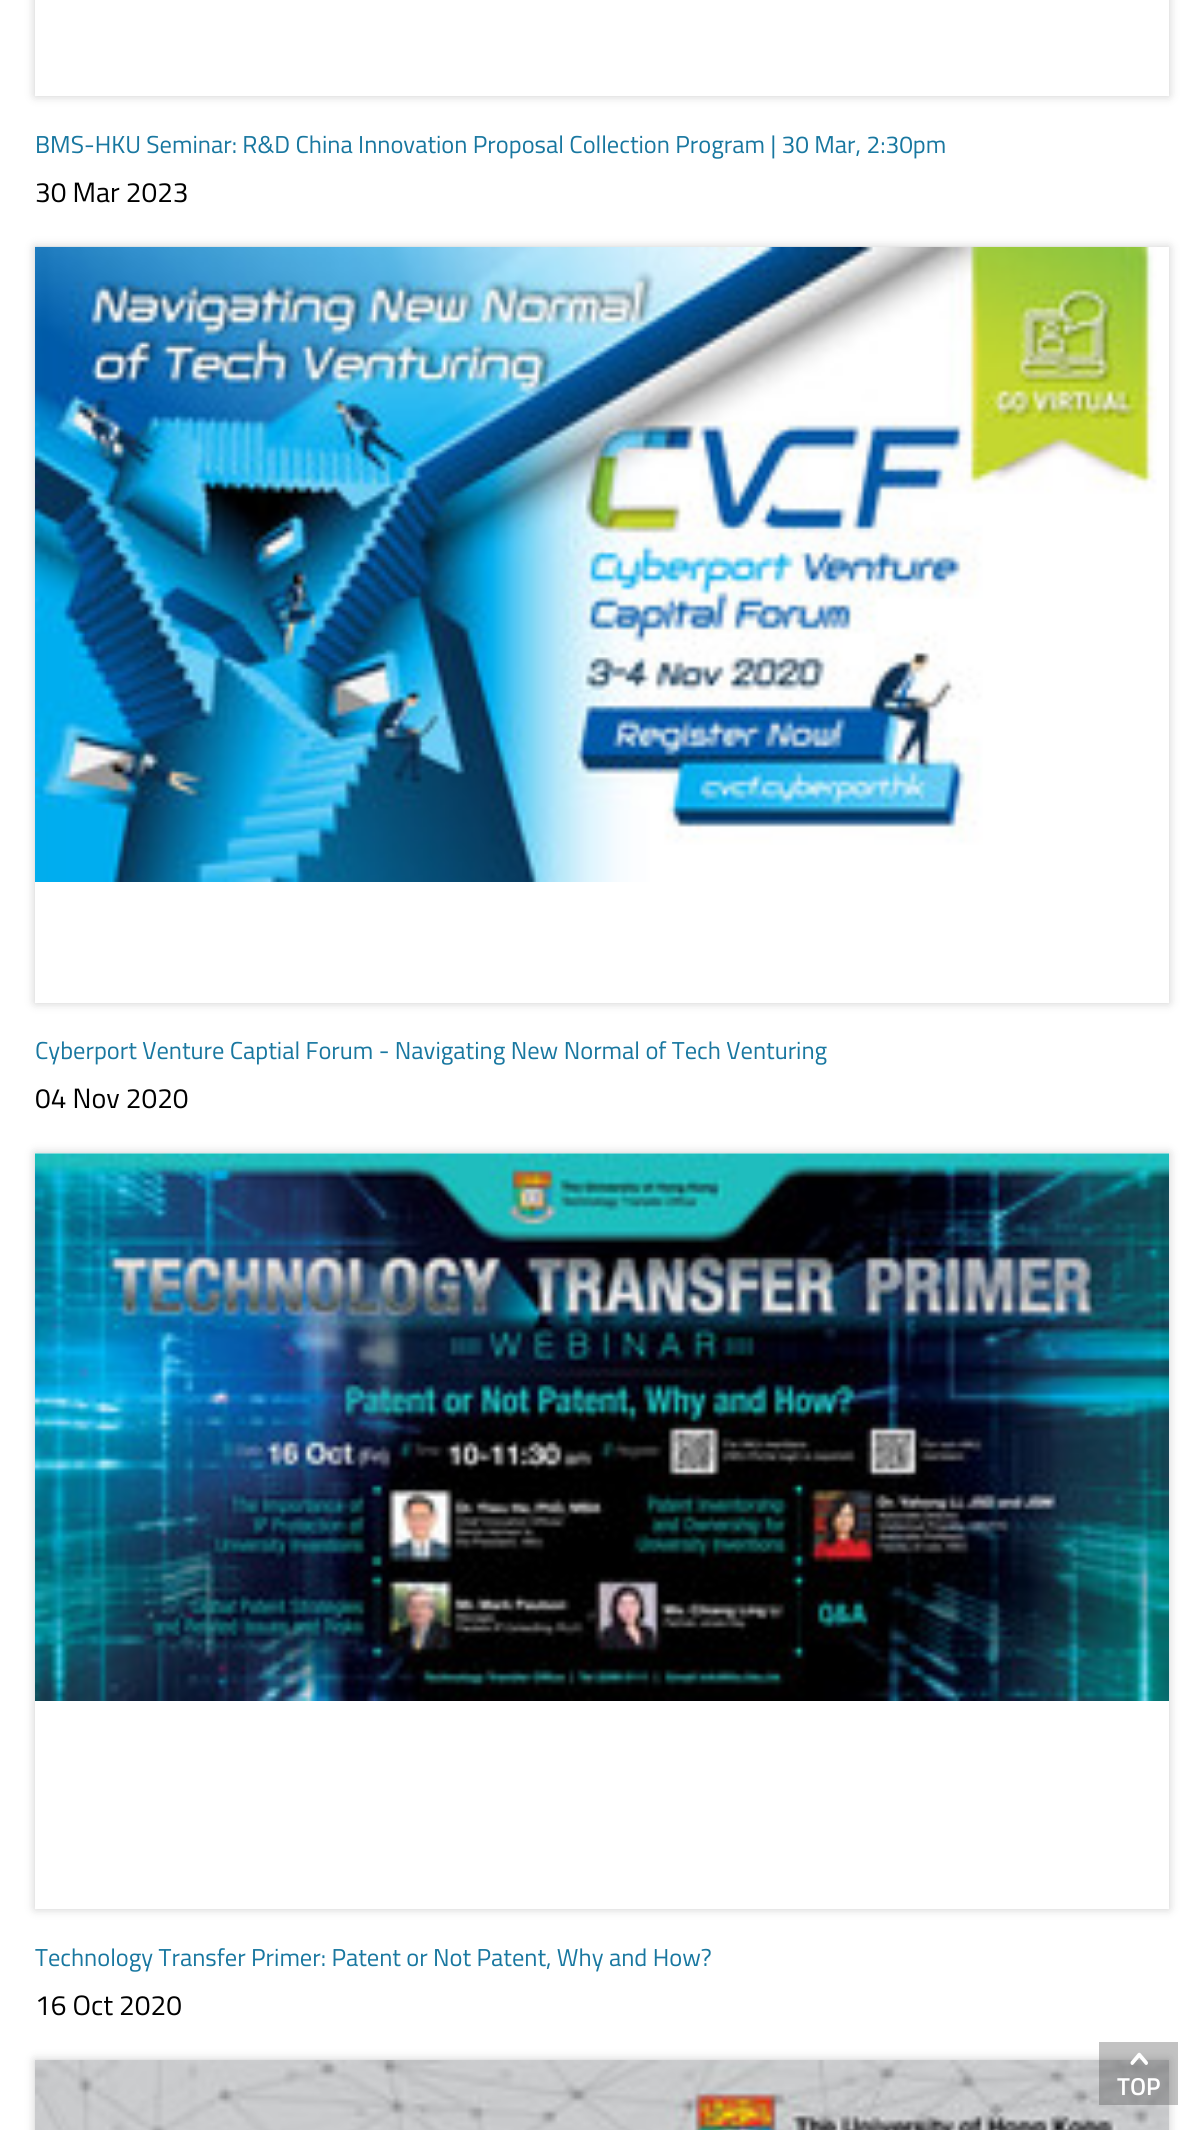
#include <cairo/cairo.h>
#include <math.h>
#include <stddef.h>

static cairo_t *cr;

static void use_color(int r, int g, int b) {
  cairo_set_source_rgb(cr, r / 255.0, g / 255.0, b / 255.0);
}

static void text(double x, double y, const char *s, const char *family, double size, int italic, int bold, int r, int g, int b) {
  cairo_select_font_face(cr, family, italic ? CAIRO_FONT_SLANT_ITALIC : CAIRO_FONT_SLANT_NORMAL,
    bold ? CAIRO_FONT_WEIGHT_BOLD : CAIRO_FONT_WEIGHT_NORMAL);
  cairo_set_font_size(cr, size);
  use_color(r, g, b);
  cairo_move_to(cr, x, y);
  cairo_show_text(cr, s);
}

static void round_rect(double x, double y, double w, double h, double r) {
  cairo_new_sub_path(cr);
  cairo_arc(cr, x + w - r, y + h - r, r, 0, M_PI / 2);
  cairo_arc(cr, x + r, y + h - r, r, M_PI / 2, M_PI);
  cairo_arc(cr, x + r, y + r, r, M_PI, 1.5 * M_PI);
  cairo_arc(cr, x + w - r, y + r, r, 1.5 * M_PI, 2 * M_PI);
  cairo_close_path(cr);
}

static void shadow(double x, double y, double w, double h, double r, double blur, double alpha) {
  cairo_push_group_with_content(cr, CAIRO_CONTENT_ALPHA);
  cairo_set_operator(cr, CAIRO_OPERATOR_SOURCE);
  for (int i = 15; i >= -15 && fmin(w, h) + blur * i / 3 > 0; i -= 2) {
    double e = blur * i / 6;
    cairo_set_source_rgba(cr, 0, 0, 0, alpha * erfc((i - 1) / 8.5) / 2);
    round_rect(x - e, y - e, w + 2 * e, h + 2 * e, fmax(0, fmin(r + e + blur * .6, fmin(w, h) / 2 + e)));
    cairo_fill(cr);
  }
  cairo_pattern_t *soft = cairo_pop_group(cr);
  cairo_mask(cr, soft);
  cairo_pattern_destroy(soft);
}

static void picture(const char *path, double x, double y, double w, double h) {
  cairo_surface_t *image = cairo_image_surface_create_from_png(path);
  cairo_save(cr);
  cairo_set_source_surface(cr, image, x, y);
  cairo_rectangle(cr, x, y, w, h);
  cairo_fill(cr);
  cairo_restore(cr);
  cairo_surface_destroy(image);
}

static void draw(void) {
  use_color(255, 255, 255);
  cairo_paint(cr);
  cairo_save(cr);
  cairo_set_fill_rule(cr, CAIRO_FILL_RULE_EVEN_ODD);
  cairo_new_path(cr);
  cairo_move_to(cr, 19, 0);
  cairo_line_to(cr, 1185, 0);
  cairo_line_to(cr, 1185, 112);
  cairo_line_to(cr, 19, 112);
  cairo_close_path(cr);
  cairo_move_to(cr, 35, -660);
  cairo_line_to(cr, 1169, -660);
  cairo_line_to(cr, 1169, 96);
  cairo_line_to(cr, 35, 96);
  cairo_close_path(cr);
  cairo_clip(cr);
  use_color(0, 0, 0);
  shadow(35, -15, 1134, 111, 0, 5, 0.2);
  cairo_restore(cr);
  cairo_save(cr);
  cairo_set_fill_rule(cr, CAIRO_FILL_RULE_EVEN_ODD);
  cairo_new_path(cr);
  cairo_move_to(cr, 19, 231);
  cairo_line_to(cr, 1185, 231);
  cairo_line_to(cr, 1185, 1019);
  cairo_line_to(cr, 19, 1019);
  cairo_close_path(cr);
  cairo_move_to(cr, 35, 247);
  cairo_line_to(cr, 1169, 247);
  cairo_line_to(cr, 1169, 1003);
  cairo_line_to(cr, 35, 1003);
  cairo_close_path(cr);
  cairo_clip(cr);
  use_color(0, 0, 0);
  shadow(35, 247, 1134, 756, 0, 5, 0.2);
  cairo_restore(cr);
  picture("img_01.png", 35, 246, 1122, 636);
  cairo_save(cr);
  cairo_set_fill_rule(cr, CAIRO_FILL_RULE_EVEN_ODD);
  cairo_new_path(cr);
  cairo_move_to(cr, 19, 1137);
  cairo_line_to(cr, 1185, 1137);
  cairo_line_to(cr, 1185, 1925);
  cairo_line_to(cr, 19, 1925);
  cairo_close_path(cr);
  cairo_move_to(cr, 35, 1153);
  cairo_line_to(cr, 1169, 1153);
  cairo_line_to(cr, 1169, 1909);
  cairo_line_to(cr, 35, 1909);
  cairo_close_path(cr);
  cairo_clip(cr);
  use_color(0, 0, 0);
  shadow(35, 1153, 1134, 756, 0, 5, 0.2);
  cairo_restore(cr);
  picture("img_02.png", 35, 1153, 1134, 548);
  use_color(0, 0, 0);
  shadow(35, 2060, 1134, 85, 0, 5, 0.2);
  picture("img_03.png", 35, 2059, 1134, 71);
  cairo_set_source_rgba(cr, 0.2, 0.2, 0.2, 0.3);
  cairo_rectangle(cr, 1099, 2042, 79, 63);
  cairo_fill(cr);
  picture("img_04.png", 1130, 2052, 18, 13);
  text(35, 153, "BMS-HKU Seminar: R&D China Innovation Proposal Collection Program | 30 Mar, 2:30pm", "Titillium Web", 24.5, 0, 0, 24, 119, 160);
  text(35, 202, "30 Mar 2023", "Titillium Web", 28, 0, 0, 0, 0, 0);
  text(35, 1059, "Cyberport Venture Captial Forum - Navigating New Normal of Tech Venturing", "Titillium Web", 24.5, 0, 0, 24, 119, 160);
  text(35, 1108, "04 Nov 2020", "Titillium Web", 28, 0, 0, 0, 0, 0);
  text(35, 1966, "Technology Transfer Primer: Patent or Not Patent, Why and How?", "Titillium Web", 24.5, 0, 0, 24, 119, 160);
  text(35, 2015, "16 Oct 2020", "Titillium Web", 28, 0, 0, 0, 0, 0);
  text(1117, 2095, "TOP", "Titillium Web SemiBold", 24.5, 0, 0, 255, 255, 255);
}

int main(void) {
  cairo_surface_t *surface = cairo_image_surface_create(CAIRO_FORMAT_RGB24, 1203, 2130);
  cr = cairo_create(surface);
  cairo_font_options_t *options = cairo_font_options_create();
  cairo_font_options_set_hint_metrics(options, CAIRO_HINT_METRICS_OFF);
  cairo_font_options_set_hint_style(options, CAIRO_HINT_STYLE_NONE);
  cairo_set_font_options(cr, options);
  cairo_set_miter_limit(cr, 4);
  draw();
  cairo_surface_write_to_png(surface, "out.png");
  cairo_font_options_destroy(options);
  cairo_destroy(cr);
  cairo_surface_destroy(surface);
  return 0;
}
